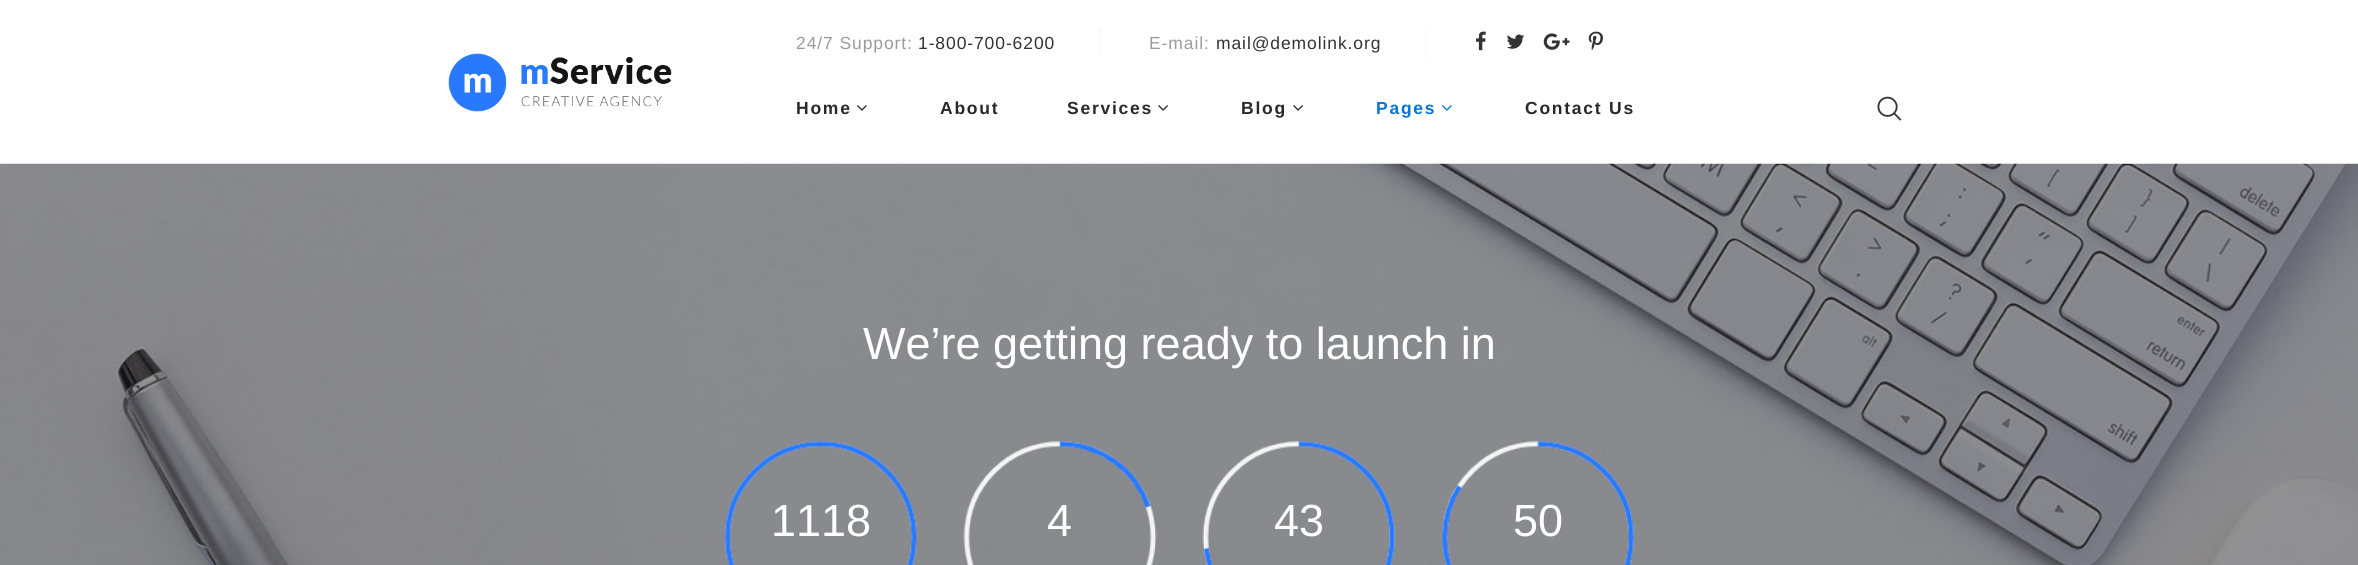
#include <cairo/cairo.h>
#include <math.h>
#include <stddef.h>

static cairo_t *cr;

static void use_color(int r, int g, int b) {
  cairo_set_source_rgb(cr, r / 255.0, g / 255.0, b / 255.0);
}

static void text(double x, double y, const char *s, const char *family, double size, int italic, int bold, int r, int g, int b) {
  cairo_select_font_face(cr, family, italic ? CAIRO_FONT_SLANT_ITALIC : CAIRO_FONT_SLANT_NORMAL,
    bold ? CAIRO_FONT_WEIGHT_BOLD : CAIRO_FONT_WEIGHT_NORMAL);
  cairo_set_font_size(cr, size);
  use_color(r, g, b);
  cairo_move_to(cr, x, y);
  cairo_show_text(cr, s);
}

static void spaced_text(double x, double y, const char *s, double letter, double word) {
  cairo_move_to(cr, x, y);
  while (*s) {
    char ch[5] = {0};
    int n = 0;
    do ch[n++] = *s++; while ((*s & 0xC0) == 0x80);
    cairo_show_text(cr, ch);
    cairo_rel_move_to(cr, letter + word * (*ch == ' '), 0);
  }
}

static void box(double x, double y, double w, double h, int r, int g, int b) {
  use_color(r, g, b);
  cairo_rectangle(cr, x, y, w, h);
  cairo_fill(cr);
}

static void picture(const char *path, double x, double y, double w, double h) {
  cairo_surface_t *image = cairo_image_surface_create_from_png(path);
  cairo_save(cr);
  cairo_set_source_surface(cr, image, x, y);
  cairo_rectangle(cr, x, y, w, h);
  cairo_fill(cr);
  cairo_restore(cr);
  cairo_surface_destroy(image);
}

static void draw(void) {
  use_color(255, 255, 255);
  cairo_paint(cr);
  picture("img_01.png", 448, 53, 224, 59);
  box(1099, 28, 1, 30, 246, 246, 246);
  box(1425, 28, 1, 30, 246, 246, 246);
  picture("img_02.png", 1476, 31, 10, 20);
  picture("img_03.png", 1507, 34, 18, 15);
  picture("img_04.png", 1543, 33, 27, 17);
  picture("img_05.png", 1588, 31, 15, 20);
  picture("img_06.png", 857, 105, 10, 6);
  picture("img_07.png", 1158, 105, 10, 6);
  picture("img_07.png", 1293, 105, 10, 6);
  picture("img_08.png", 1442, 105, 10, 6);
  picture("img_09.png", 1877, 96, 25, 25);
  picture("img_10.png", 0, 163, 2358, 402);
  picture("img_11.png", 724, 441, 910, 124);
  cairo_select_font_face(cr, "Liberation Sans", CAIRO_FONT_SLANT_NORMAL, CAIRO_FONT_WEIGHT_NORMAL);
  cairo_set_font_size(cr, 17.5);
  use_color(155, 155, 155);
  spaced_text(796, 49, "24/7 Support:", 0.9, 0);
  use_color(51, 51, 51);
  spaced_text(918, 49, "1-800-700-6200", 0.9, 0);
  use_color(155, 155, 155);
  spaced_text(1149, 49, "E-mail:", 0.9, 0);
  use_color(51, 51, 51);
  spaced_text(1216, 49, "mail@demolink.org", 0.9, 0);
  cairo_select_font_face(cr, "Liberation Sans", CAIRO_FONT_SLANT_NORMAL, CAIRO_FONT_WEIGHT_BOLD);
  use_color(41, 41, 41);
  spaced_text(796, 114, "Home", 1.75, 0);
  spaced_text(940, 114, "About", 1.75, 0);
  spaced_text(1067, 114, "Services", 1.75, 0);
  spaced_text(1241, 114, "Blog", 1.75, 0);
  use_color(7, 117, 214);
  spaced_text(1376, 114, "Pages", 1.75, 0);
  use_color(41, 41, 41);
  spaced_text(1525, 114, "Contact Us", 1.75, 0);
  text(863, 359, "We’re getting ready to launch in", "Liberation Sans", 45, 0, 0, 255, 255, 255);
  text(771, 536, "1118", "Liberation Sans", 45, 0, 0, 255, 255, 255);
  text(1047, 536, "4", "Liberation Sans", 45, 0, 0, 255, 255, 255);
  text(1274, 536, "43", "Liberation Sans", 45, 0, 0, 255, 255, 255);
  text(1513, 536, "50", "Liberation Sans", 45, 0, 0, 255, 255, 255);
}

int main(void) {
  cairo_surface_t *surface = cairo_image_surface_create(CAIRO_FORMAT_RGB24, 2358, 565);
  cr = cairo_create(surface);
  cairo_font_options_t *options = cairo_font_options_create();
  cairo_font_options_set_hint_metrics(options, CAIRO_HINT_METRICS_OFF);
  cairo_font_options_set_hint_style(options, CAIRO_HINT_STYLE_NONE);
  cairo_set_font_options(cr, options);
  cairo_set_miter_limit(cr, 4);
  draw();
  cairo_surface_write_to_png(surface, "out.png");
  cairo_font_options_destroy(options);
  cairo_destroy(cr);
  cairo_surface_destroy(surface);
  return 0;
}
